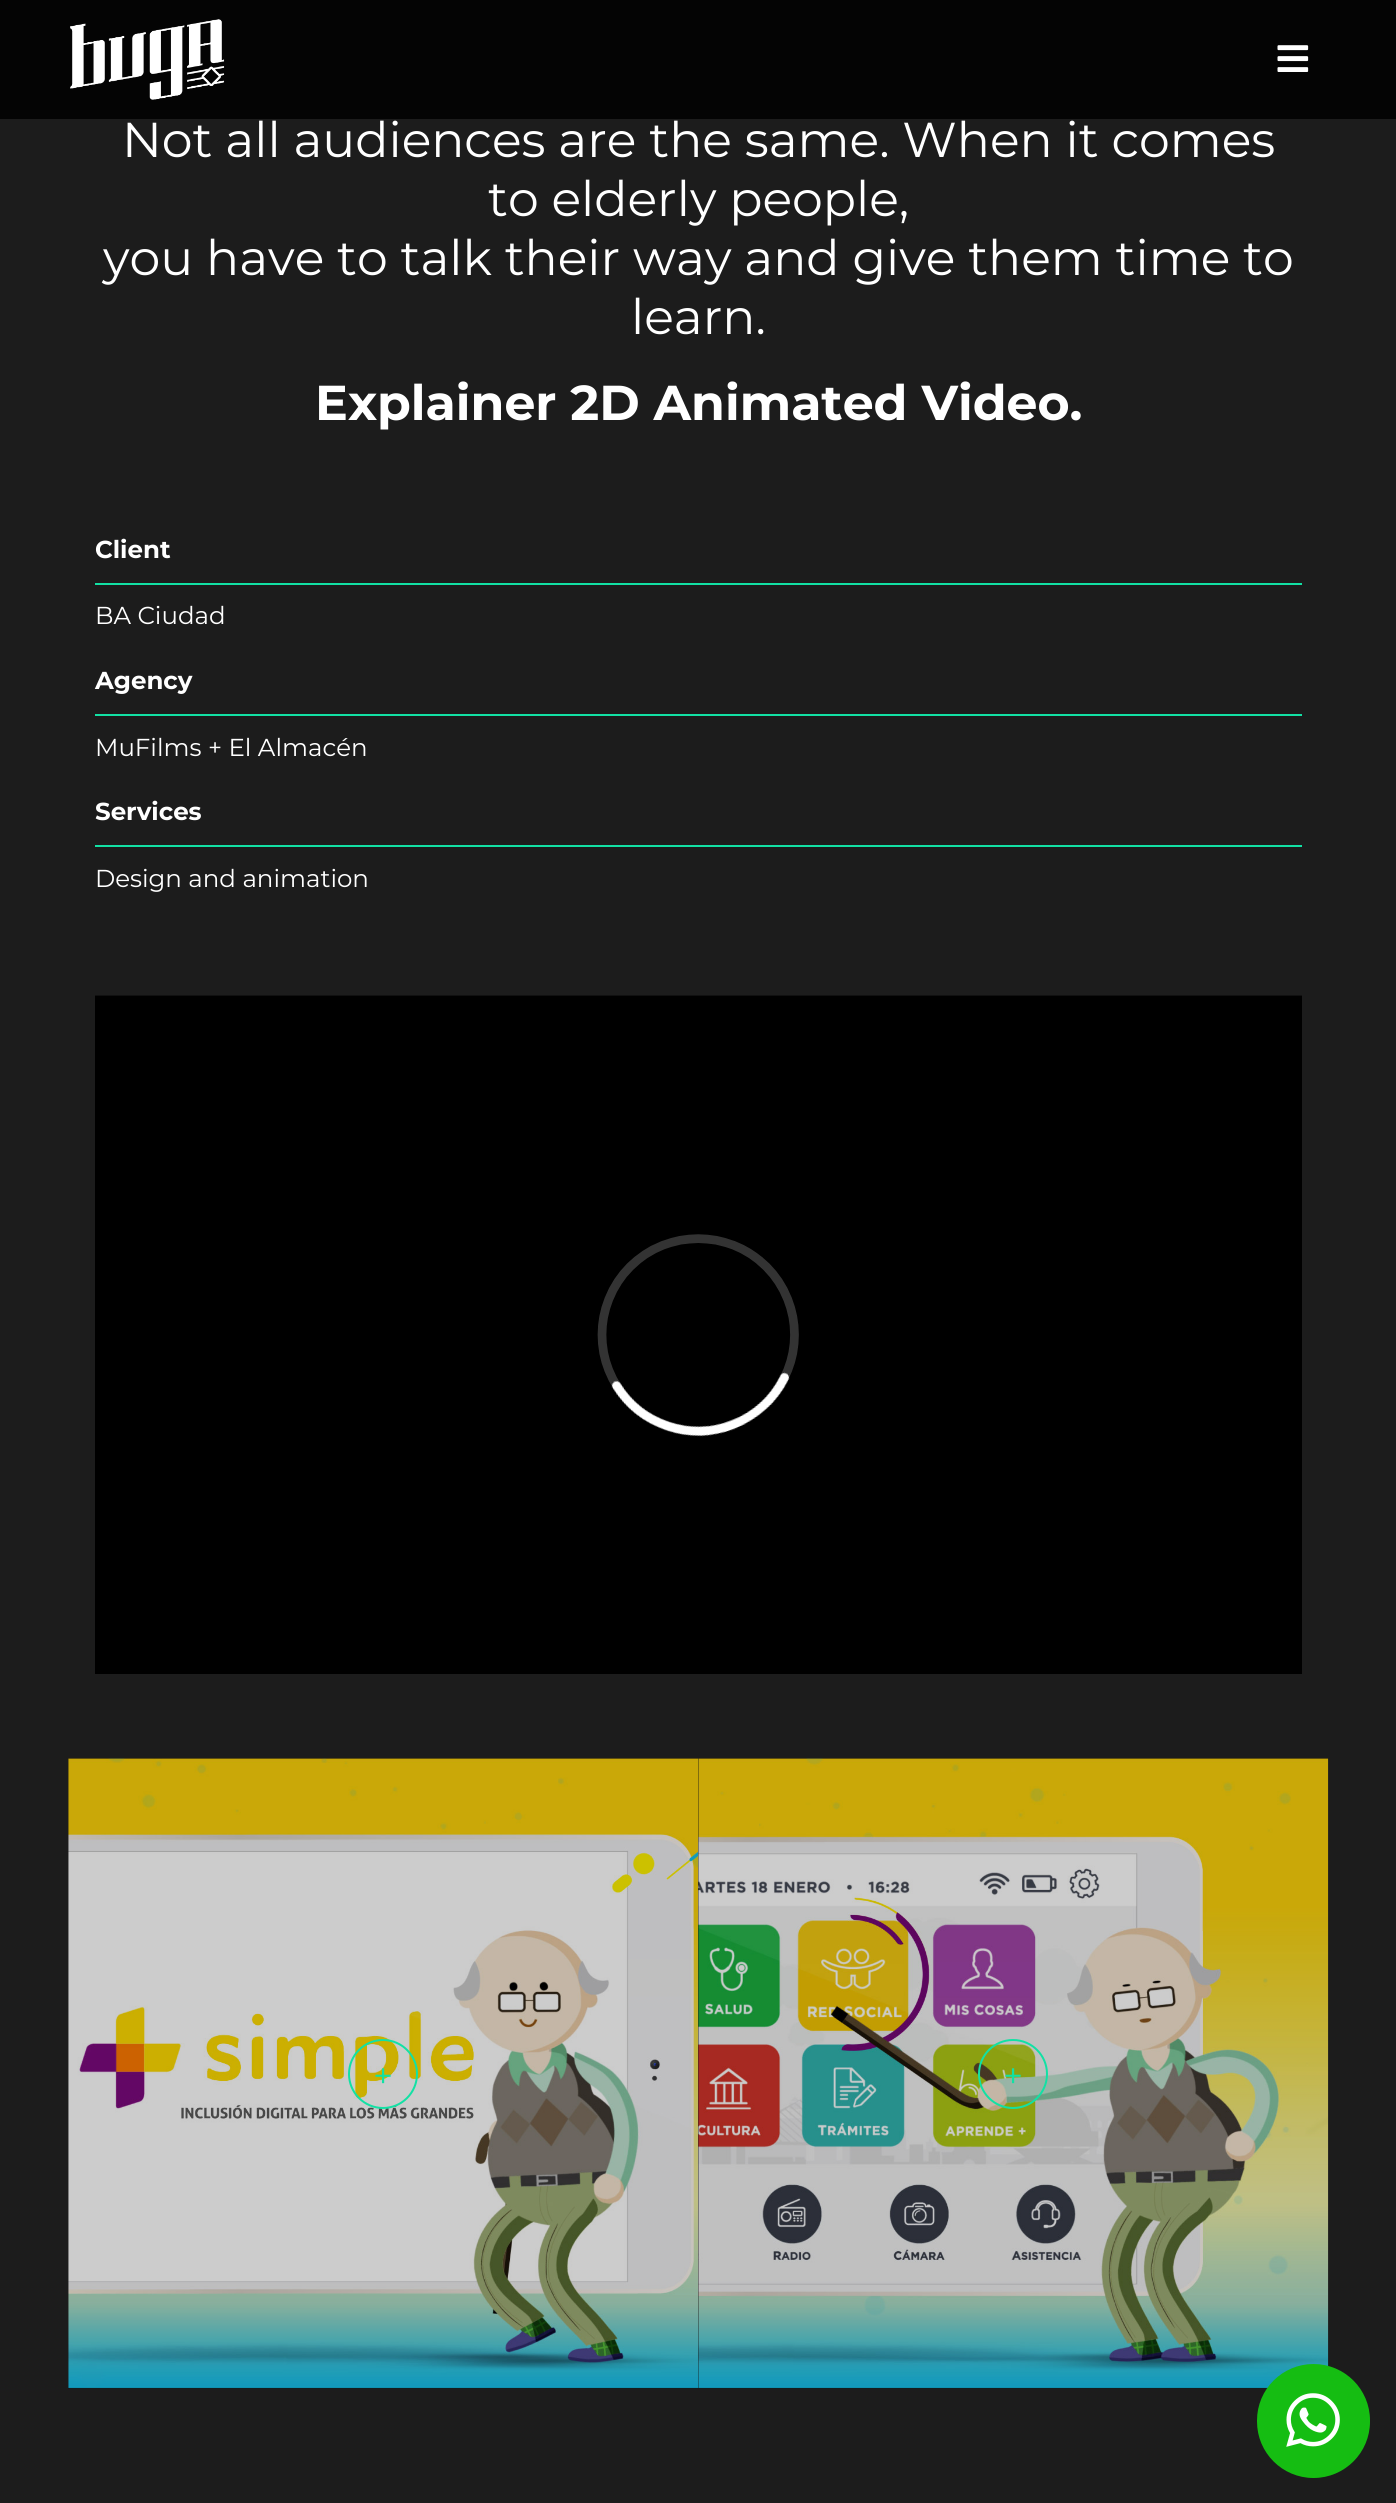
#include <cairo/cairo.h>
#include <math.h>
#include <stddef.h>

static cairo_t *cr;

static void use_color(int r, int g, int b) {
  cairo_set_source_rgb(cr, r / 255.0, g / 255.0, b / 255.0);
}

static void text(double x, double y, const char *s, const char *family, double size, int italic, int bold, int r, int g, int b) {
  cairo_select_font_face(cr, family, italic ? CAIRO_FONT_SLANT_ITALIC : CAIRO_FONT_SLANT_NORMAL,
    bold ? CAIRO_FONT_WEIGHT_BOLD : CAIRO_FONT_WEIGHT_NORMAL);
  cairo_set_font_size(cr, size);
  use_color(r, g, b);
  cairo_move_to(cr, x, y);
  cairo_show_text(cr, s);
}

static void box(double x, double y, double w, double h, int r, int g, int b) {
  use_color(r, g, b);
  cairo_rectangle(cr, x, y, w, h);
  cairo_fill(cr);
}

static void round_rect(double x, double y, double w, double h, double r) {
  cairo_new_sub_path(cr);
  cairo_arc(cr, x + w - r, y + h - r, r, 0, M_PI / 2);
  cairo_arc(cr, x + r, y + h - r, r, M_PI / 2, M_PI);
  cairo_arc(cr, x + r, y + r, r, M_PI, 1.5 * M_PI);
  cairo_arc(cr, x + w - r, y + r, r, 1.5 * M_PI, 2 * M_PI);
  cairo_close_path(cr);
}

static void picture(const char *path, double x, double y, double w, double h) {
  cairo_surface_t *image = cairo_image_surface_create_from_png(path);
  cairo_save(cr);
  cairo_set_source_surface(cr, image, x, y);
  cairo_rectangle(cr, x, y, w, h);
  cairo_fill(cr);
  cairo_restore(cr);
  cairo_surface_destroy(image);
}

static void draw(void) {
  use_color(28, 28, 28);
  cairo_paint(cr);
  box(0, 0, 1396, 119, 4, 4, 4);
  picture("img_01.png", 70, 19, 155, 81);
  picture("img_02.png", 1277, 45, 32, 27);
  box(68, 1759, 630, 630, 22, 22, 22);
  box(95, 583, 1207, 2, 18, 225, 164);
  box(95, 714, 1207, 2, 18, 225, 164);
  box(95, 845, 1207, 2, 18, 225, 164);
  picture("img_03.png", 95, 995, 1207, 679);
  picture("img_04.png", 68, 1758, 631, 631);
  cairo_arc(cr, 383, 2074, 34, 0, 2 * M_PI);
  cairo_stroke(cr);
  picture("img_05.png", 698, 1758, 631, 631);
  cairo_set_source_rgba(cr, 0, 0, 0, 0.2);
  cairo_rectangle(cr, 698, 1759, 630, 630);
  cairo_fill(cr);
  cairo_arc(cr, 1013, 2074, 34, 0, 2 * M_PI);
  use_color(18, 225, 164);
  cairo_stroke(cr);
  use_color(21, 189, 18);
  round_rect(1257, 2364, 113, 114, 56.5);
  cairo_fill(cr);
  picture("img_06.png", 1286, 2393, 54, 54);
  text(122, 157, "Not all audiences are the same. When it comes", "Montserrat", 49, 0, 0, 255, 255, 255);
  text(488, 216, "to elderly people,", "Montserrat", 49, 0, 0, 255, 255, 255);
  text(103, 275, "you have to talk their way and give them time to", "Montserrat", 49, 0, 0, 255, 255, 255);
  text(631, 334, "learn.", "Montserrat", 49, 0, 0, 255, 255, 255);
  text(315, 420, "Explainer 2D Animated Video.", "Montserrat", 49, 0, 1, 255, 255, 255);
  text(95, 558, "Client", "Montserrat", 24.5, 0, 1, 255, 255, 255);
  text(95, 624, "BA Ciudad", "Montserrat", 24.5, 0, 0, 255, 255, 255);
  text(95, 689, "Agency", "Montserrat", 24.5, 0, 1, 255, 255, 255);
  text(95, 756, "MuFilms + El Almacén", "Montserrat", 24.5, 0, 0, 255, 255, 255);
  text(95, 820, "Services", "Montserrat", 24.5, 0, 1, 255, 255, 255);
  text(95, 887, "Design and animation", "Montserrat", 24.5, 0, 0, 255, 255, 255);
  text(373, 2088, "+", "Montserrat", 35, 0, 0, 18, 225, 164);
  text(1003, 2088, "+", "Montserrat", 35, 0, 0, 18, 225, 164);
}

int main(void) {
  cairo_surface_t *surface = cairo_image_surface_create(CAIRO_FORMAT_RGB24, 1396, 2503);
  cr = cairo_create(surface);
  cairo_font_options_t *options = cairo_font_options_create();
  cairo_font_options_set_hint_metrics(options, CAIRO_HINT_METRICS_OFF);
  cairo_font_options_set_hint_style(options, CAIRO_HINT_STYLE_NONE);
  cairo_set_font_options(cr, options);
  cairo_set_miter_limit(cr, 4);
  draw();
  cairo_surface_write_to_png(surface, "out.png");
  cairo_font_options_destroy(options);
  cairo_destroy(cr);
  cairo_surface_destroy(surface);
  return 0;
}
